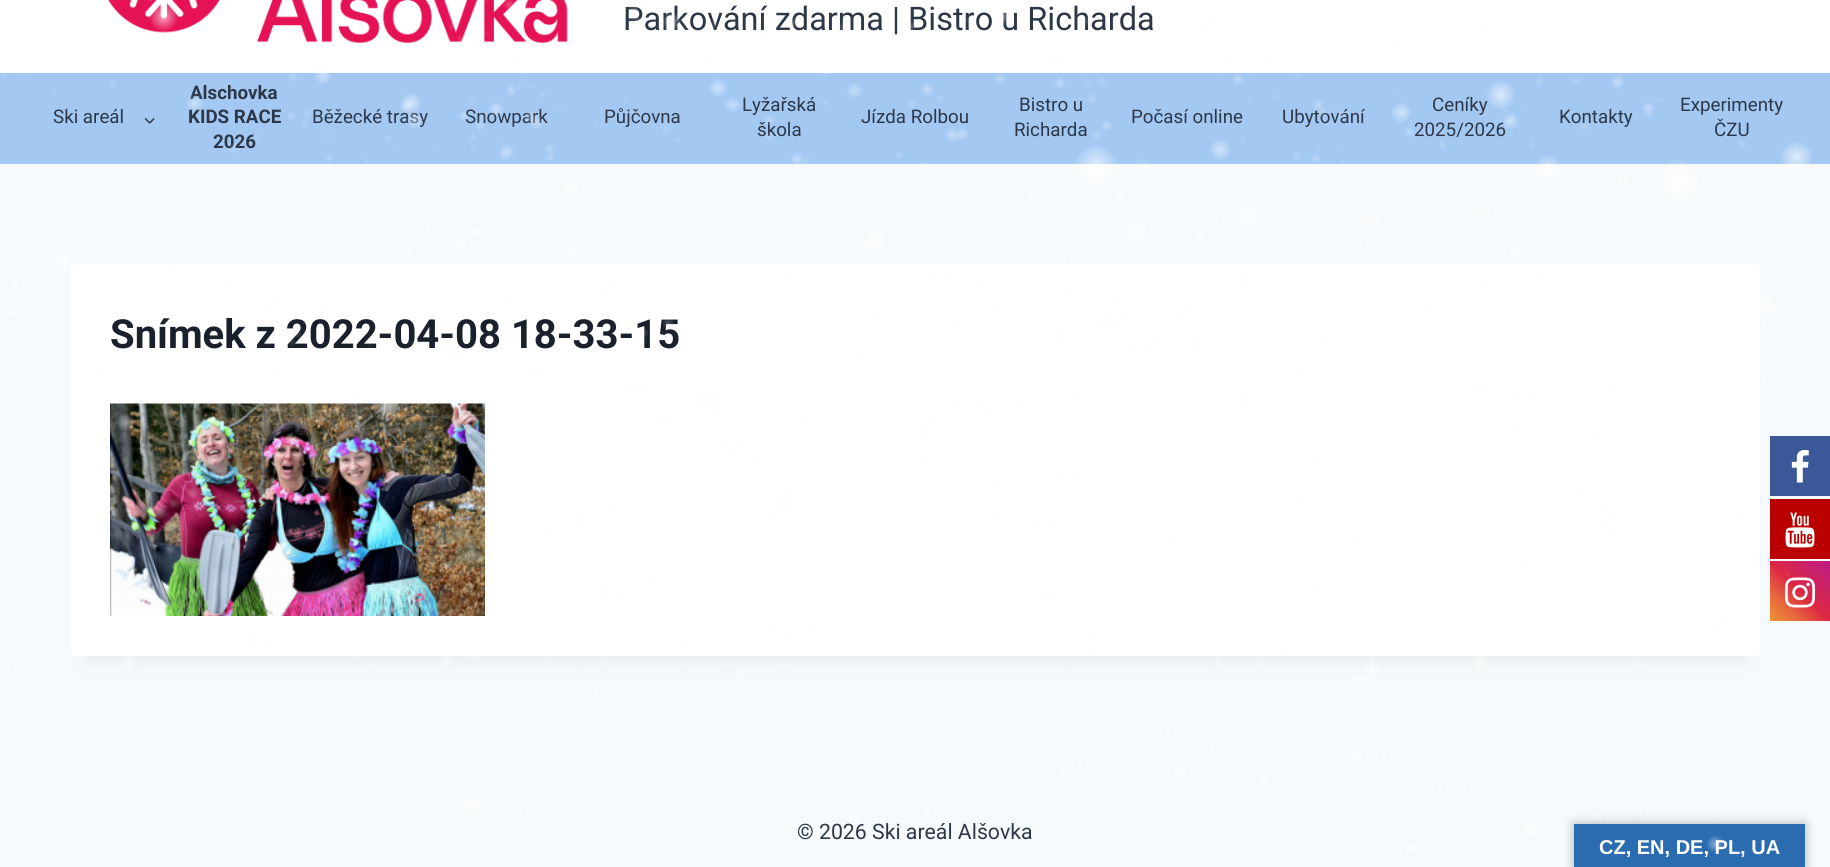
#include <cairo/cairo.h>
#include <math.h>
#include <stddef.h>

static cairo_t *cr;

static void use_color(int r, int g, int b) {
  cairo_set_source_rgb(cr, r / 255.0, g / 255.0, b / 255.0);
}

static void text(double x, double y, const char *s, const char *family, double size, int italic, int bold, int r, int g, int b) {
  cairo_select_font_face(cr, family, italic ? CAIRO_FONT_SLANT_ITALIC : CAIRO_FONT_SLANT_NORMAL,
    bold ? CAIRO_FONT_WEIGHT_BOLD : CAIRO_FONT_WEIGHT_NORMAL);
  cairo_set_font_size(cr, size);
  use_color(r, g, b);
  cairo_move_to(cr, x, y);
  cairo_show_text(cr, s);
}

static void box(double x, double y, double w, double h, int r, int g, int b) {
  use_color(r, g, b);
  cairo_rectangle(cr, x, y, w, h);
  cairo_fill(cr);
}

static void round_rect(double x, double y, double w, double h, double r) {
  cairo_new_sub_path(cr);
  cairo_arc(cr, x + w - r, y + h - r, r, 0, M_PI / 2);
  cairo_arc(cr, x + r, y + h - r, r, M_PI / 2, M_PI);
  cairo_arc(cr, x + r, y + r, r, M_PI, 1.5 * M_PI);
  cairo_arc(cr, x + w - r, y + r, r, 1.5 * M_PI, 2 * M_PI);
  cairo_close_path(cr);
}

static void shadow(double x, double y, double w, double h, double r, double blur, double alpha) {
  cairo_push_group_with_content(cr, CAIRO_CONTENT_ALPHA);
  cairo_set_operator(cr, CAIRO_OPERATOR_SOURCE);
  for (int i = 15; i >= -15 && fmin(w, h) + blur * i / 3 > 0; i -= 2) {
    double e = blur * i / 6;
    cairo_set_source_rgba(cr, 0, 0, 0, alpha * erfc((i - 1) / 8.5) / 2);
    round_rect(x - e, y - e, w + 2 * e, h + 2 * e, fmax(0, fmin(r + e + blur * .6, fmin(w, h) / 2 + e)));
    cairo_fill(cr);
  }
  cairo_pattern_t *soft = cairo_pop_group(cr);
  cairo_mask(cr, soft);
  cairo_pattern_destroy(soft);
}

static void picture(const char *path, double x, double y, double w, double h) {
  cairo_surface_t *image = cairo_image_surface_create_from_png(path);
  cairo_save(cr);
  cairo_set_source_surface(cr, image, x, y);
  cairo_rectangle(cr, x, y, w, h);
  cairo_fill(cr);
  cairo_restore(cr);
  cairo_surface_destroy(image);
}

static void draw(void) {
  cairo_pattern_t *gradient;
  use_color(247, 250, 252);
  cairo_paint(cr);
  box(0, 0, 1830, 73, 255, 255, 255);
  picture("img_02.png", 108, 0, 460, 44);
  box(0, 73, 1830, 91, 163, 201, 243);
  picture("img_03.png", 144, 118, 11, 6);
  use_color(0, 0, 0);
  shadow(83, 295, 1665, 368, 0, 9.5, 0.05);
  use_color(255, 255, 255);
  round_rect(70, 264, 1690, 392, 5);
  cairo_fill(cr);
  picture("img_04.png", 110, 403, 375, 213);
  box(1770, 436, 60, 60, 59, 89, 152);
  picture("img_05.png", 1791, 450, 18, 33);
  box(1770, 499, 60, 60, 187, 0, 0);
  picture("img_06.png", 1785, 512, 30, 36);
  gradient = cairo_pattern_create_linear(1770, 621, 1830, 561);
  cairo_pattern_add_color_stop_rgba(gradient, 0, 0.941, 0.58, 0.2, 1);
  cairo_pattern_add_color_stop_rgba(gradient, 0.25, 0.902, 0.408, 0.235, 1);
  cairo_pattern_add_color_stop_rgba(gradient, 0.5, 0.863, 0.153, 0.263, 1);
  cairo_pattern_add_color_stop_rgba(gradient, 0.75, 0.8, 0.137, 0.4, 1);
  cairo_pattern_add_color_stop_rgba(gradient, 1, 0.737, 0.094, 0.533, 1);
  cairo_set_source(cr, gradient);
  cairo_pattern_destroy(gradient);
  cairo_rectangle(cr, 1770, 561, 60, 60);
  cairo_fill(cr);
  picture("img_07.png", 1785, 577, 30, 31);
  use_color(0, 0, 0);
  shadow(1574, 824, 231, 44, 0, 5.5, 0.3);
  box(1574, 824, 231, 43, 43, 108, 176);
  text(623, 30, "Parkování zdarma | Bistro u Richarda", "Roboto", 32.5, 0, 0, 45, 55, 72);
  text(53, 123, "Ski areál", "Roboto", 18.75, 0, 0, 45, 55, 72);
  text(190, 99, "Alschovka", "Roboto", 18.75, 0, 1, 45, 55, 72);
  text(188, 123, "KIDS RACE", "Roboto", 18.75, 0, 1, 45, 55, 72);
  text(213, 148, "2026", "Roboto", 18.75, 0, 1, 45, 55, 72);
  text(312, 123, "Běžecké trasy", "Roboto", 18.75, 0, 0, 45, 55, 72);
  text(465, 123, "Snowpark", "Roboto", 18.75, 0, 0, 45, 55, 72);
  text(604, 123, "Půjčovna", "Roboto", 18.75, 0, 0, 45, 55, 72);
  text(742, 111, "Lyžařská", "Roboto", 18.75, 0, 0, 45, 55, 72);
  text(757, 136, "škola", "Roboto", 18.75, 0, 0, 45, 55, 72);
  text(861, 123, "Jízda Rolbou", "Roboto", 18.75, 0, 0, 45, 55, 72);
  text(1019, 111, "Bistro u", "Roboto", 18.75, 0, 0, 45, 55, 72);
  text(1014, 136, "Richarda", "Roboto", 18.75, 0, 0, 45, 55, 72);
  text(1131, 123, "Počasí online", "Roboto", 18.75, 0, 0, 45, 55, 72);
  text(1282, 123, "Ubytování", "Roboto", 18.75, 0, 0, 45, 55, 72);
  text(1432, 111, "Ceníky", "Roboto", 18.75, 0, 0, 45, 55, 72);
  text(1414, 136, "2025/2026", "Roboto", 18.75, 0, 0, 45, 55, 72);
  text(1559, 123, "Kontakty", "Roboto", 18.75, 0, 0, 45, 55, 72);
  text(1680, 111, "Experimenty", "Roboto", 18.75, 0, 0, 45, 55, 72);
  text(1714, 136, "ČZU", "Roboto", 18.75, 0, 0, 45, 55, 72);
  text(110, 348, "Snímek z 2022-04-08 18-33-15", "Roboto", 40, 0, 1, 26, 32, 44);
  text(797, 839, "© 2026 Ski areál Alšovka", "Roboto", 21.25, 0, 0, 45, 55, 72);
  text(1599, 854, "CZ, EN, DE, PL, UA", "Liberation Sans", 20, 0, 1, 255, 255, 255);
  picture("img_01.png", 1, 0, 1811, 853);
}

int main(void) {
  cairo_surface_t *surface = cairo_image_surface_create(CAIRO_FORMAT_RGB24, 1830, 867);
  cr = cairo_create(surface);
  cairo_font_options_t *options = cairo_font_options_create();
  cairo_font_options_set_hint_metrics(options, CAIRO_HINT_METRICS_OFF);
  cairo_font_options_set_hint_style(options, CAIRO_HINT_STYLE_NONE);
  cairo_set_font_options(cr, options);
  cairo_set_miter_limit(cr, 4);
  draw();
  cairo_surface_write_to_png(surface, "out.png");
  cairo_font_options_destroy(options);
  cairo_destroy(cr);
  cairo_surface_destroy(surface);
  return 0;
}
